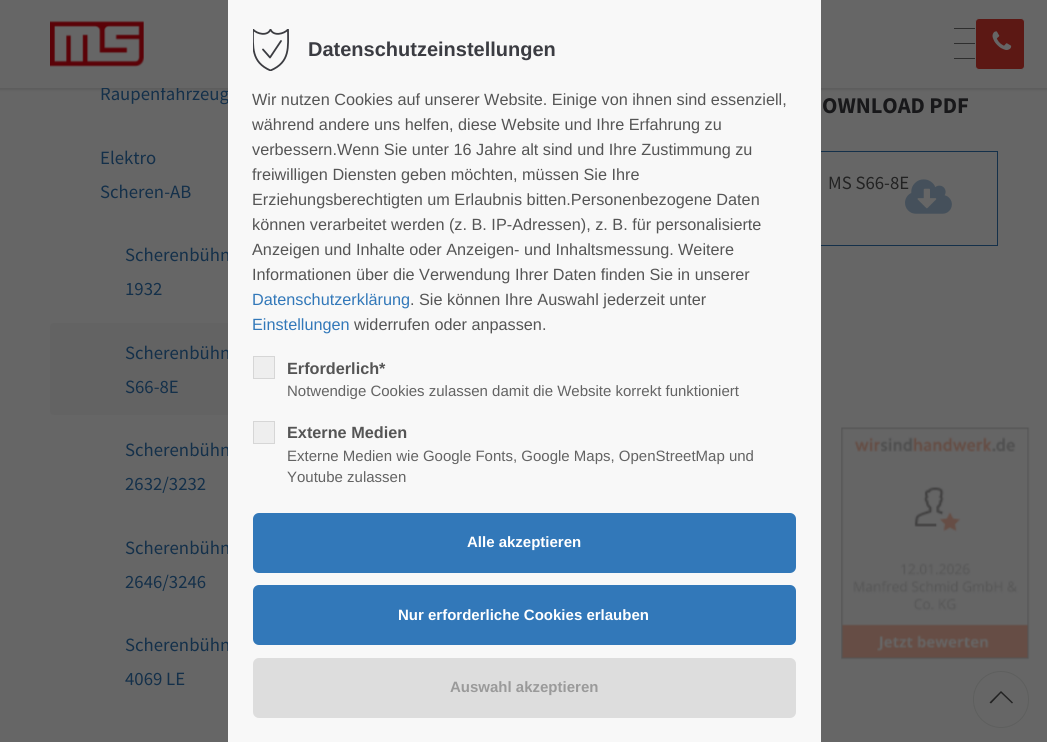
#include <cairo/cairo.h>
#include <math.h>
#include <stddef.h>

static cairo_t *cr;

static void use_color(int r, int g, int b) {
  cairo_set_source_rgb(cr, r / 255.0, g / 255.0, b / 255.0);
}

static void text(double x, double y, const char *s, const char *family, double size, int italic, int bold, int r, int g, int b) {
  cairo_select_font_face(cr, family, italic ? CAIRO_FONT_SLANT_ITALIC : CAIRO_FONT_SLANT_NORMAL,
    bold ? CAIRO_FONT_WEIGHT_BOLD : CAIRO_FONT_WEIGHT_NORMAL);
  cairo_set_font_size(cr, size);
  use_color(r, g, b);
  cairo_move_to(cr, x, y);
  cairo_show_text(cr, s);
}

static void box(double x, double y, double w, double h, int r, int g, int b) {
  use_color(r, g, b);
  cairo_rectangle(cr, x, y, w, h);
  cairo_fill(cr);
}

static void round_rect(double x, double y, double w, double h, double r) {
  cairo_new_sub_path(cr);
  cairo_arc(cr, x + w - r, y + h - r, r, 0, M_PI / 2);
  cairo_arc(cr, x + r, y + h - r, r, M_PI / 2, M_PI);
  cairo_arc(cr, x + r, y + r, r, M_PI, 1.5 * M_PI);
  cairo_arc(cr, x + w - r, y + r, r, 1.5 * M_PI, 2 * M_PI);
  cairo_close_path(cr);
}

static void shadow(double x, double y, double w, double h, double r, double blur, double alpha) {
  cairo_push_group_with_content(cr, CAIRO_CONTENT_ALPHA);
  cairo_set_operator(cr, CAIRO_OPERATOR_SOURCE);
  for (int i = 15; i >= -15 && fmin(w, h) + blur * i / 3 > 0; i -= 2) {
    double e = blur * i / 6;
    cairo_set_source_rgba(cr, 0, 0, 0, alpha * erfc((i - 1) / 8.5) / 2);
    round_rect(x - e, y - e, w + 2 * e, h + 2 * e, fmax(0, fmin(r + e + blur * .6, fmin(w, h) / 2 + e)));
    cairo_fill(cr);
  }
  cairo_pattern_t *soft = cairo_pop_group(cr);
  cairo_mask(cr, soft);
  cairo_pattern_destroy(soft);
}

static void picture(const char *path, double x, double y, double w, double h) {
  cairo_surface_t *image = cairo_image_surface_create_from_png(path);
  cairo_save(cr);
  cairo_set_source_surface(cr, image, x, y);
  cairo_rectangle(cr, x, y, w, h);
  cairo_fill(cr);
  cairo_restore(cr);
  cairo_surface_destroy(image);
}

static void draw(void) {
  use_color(102, 102, 102);
  cairo_paint(cr);
  use_color(0, 0, 0);
  shadow(-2, -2, 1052, 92, 0, 1, 0.1);
  use_color(99, 99, 99);
  round_rect(50, 323, 190, 92, 4);
  cairo_fill(cr);
  cairo_rectangle(cr, 808.5, 151.5, 189, 94);
  use_color(20, 48, 74);
  cairo_set_line_width(cr, 1);
  cairo_stroke(cr);
  picture("img_04.png", 841, 427, 189, 233);
  round_rect(973.5, 671.5, 55, 56, 27.5);
  use_color(94, 95, 94);
  cairo_stroke(cr);
  use_color(34, 34, 34);
  cairo_new_path(cr);
  cairo_move_to(cr, 1013, 702.5);
  cairo_line_to(cr, 1012, 703.5);
  cairo_line_to(cr, 1001, 693);
  cairo_line_to(cr, 991, 703.5);
  cairo_line_to(cr, 989.5, 702.5);
  cairo_line_to(cr, 1001, 691);
  cairo_close_path(cr);
  cairo_fill(cr);
  text(100, 100, "Raupenfahrzeug", "Source Sans Pro", 18.75, 0, 0, 20, 48, 74);
  box(0, 0, 1047, 88, 102, 102, 102);
  use_color(92, 24, 20);
  round_rect(975.5, 18.5, 49, 51, 3.5);
  cairo_fill_preserve(cr);
  use_color(102, 102, 102);
  cairo_stroke(cr);
  picture("img_02.png", 992, 31, 20, 19);
  box(954, 28, 21, 1, 46, 46, 46);
  box(954, 58, 21, 1, 46, 46, 46);
  box(954, 43, 21, 1, 46, 46, 46);
  picture("img_01.png", 50, 20, 94, 47);
  text(100, 164, "Elektro", "Source Sans Pro", 18.75, 0, 0, 20, 48, 74);
  text(100, 198, "Scheren-AB", "Source Sans Pro", 18.75, 0, 0, 20, 48, 74);
  text(125, 261, "Scherenbühn", "Source Sans Pro", 18.75, 0, 0, 20, 48, 74);
  text(125, 295, "1932", "Source Sans Pro", 18.75, 0, 0, 20, 48, 74);
  text(125, 359, "Scherenbühn", "Source Sans Pro", 18.75, 0, 0, 20, 48, 74);
  text(125, 393, "S66-8E", "Source Sans Pro", 18.75, 0, 0, 20, 48, 74);
  text(125, 456, "Scherenbühn", "Source Sans Pro", 18.75, 0, 0, 20, 48, 74);
  text(125, 490, "2632/3232", "Source Sans Pro", 18.75, 0, 0, 20, 48, 74);
  text(125, 554, "Scherenbühn", "Source Sans Pro", 18.75, 0, 0, 20, 48, 74);
  text(125, 588, "2646/3246", "Source Sans Pro", 18.75, 0, 0, 20, 48, 74);
  text(125, 651, "Scherenbühn", "Source Sans Pro", 18.75, 0, 0, 20, 48, 74);
  box(228, 0, 593, 742, 248, 248, 248);
  use_color(221, 221, 221);
  round_rect(253, 658, 543, 60, 6);
  cairo_fill(cr);
  text(450, 692, "Auswahl akzeptieren", "Liberation Sans", 15, 0, 1, 154, 154, 154);
  use_color(50, 120, 185);
  round_rect(253, 585, 543, 60, 6);
  cairo_fill(cr);
  text(398, 620, "Nur erforderliche Cookies erlauben", "Liberation Sans", 15, 0, 1, 255, 255, 255);
  use_color(50, 120, 185);
  round_rect(253, 513, 543, 60, 6);
  cairo_fill(cr);
  text(467, 547, "Alle akzeptieren", "Liberation Sans", 15, 0, 1, 255, 255, 255);
  use_color(238, 238, 238);
  cairo_rectangle(cr, 253.5, 421.5, 21, 22);
  cairo_fill_preserve(cr);
  use_color(214, 214, 214);
  cairo_stroke(cr);
  text(287, 482, "Youtube zulassen", "Liberation Sans", 15, 0, 0, 99, 99, 99);
  text(287, 461, "Externe Medien wie Google Fonts, Google Maps, OpenStreetMap und", "Liberation Sans", 15, 0, 0, 99, 99, 99);
  text(287, 438, "Externe Medien", "Liberation Sans", 16.25, 0, 1, 85, 85, 85);
  use_color(238, 238, 238);
  cairo_rectangle(cr, 253.5, 356.5, 21, 22);
  cairo_fill_preserve(cr);
  use_color(214, 214, 214);
  cairo_stroke(cr);
  text(287, 396, "Notwendige Cookies zulassen damit die Website korrekt funktioniert", "Liberation Sans", 15, 0, 0, 99, 99, 99);
  text(287, 374, "Erforderlich*", "Liberation Sans", 16.25, 0, 1, 85, 85, 85);
  text(354, 330, "widerrufen oder anpassen.", "Liberation Sans", 16.25, 0, 0, 85, 85, 85);
  text(252, 330, "Einstellungen", "Liberation Sans", 16.25, 0, 0, 50, 120, 185);
  text(419, 305, "Sie können Ihre Auswahl jederzeit unter", "Liberation Sans", 16.25, 0, 0, 85, 85, 85);
  text(410, 305, ".", "Liberation Sans", 16.25, 0, 0, 85, 85, 85);
  text(252, 305, "Datenschutzerklärung", "Liberation Sans", 16.25, 0, 0, 50, 120, 185);
  text(252, 280, "Informationen über die Verwendung Ihrer Daten finden Sie in unserer", "Liberation Sans", 16.25, 0, 0, 85, 85, 85);
  text(678, 255, "Weitere", "Liberation Sans", 16.25, 0, 0, 85, 85, 85);
  text(252, 255, "Anzeigen und Inhalte oder Anzeigen- und Inhaltsmessung.", "Liberation Sans", 16.25, 0, 0, 85, 85, 85);
  text(252, 230, "können verarbeitet werden (z. B. IP-Adressen), z. B. für personalisierte", "Liberation Sans", 16.25, 0, 0, 85, 85, 85);
  text(252, 205, "Erziehungsberechtigten um Erlaubnis bitten.Personenbezogene Daten", "Liberation Sans", 16.25, 0, 0, 85, 85, 85);
  text(252, 180, "freiwilligen Diensten geben möchten, müssen Sie Ihre", "Liberation Sans", 16.25, 0, 0, 85, 85, 85);
  text(252, 155, "verbessern.Wenn Sie unter 16 Jahre alt sind und Ihre Zustimmung zu", "Liberation Sans", 16.25, 0, 0, 85, 85, 85);
  text(252, 130, "während andere uns helfen, diese Website und Ihre Erfahrung zu", "Liberation Sans", 16.25, 0, 0, 85, 85, 85);
  text(252, 105, "Wir nutzen Cookies auf unserer Website. Einige von ihnen sind essenziell,", "Liberation Sans", 16.25, 0, 0, 85, 85, 85);
  text(308, 56, "Datenschutzeinstellungen", "Liberation Sans", 20, 0, 1, 59, 60, 66);
  cairo_save(cr);
  cairo_rectangle(cr, 253, 29, 37, 42);
  cairo_clip(cr);
  cairo_new_path(cr);
  cairo_move_to(cr, 270.5, 70.5);
  cairo_curve_to(cr, 251, 62, 253, 47, 253, 29.5);
  cairo_curve_to(cr, 257, 34, 267.5, 36.5, 270.5, 29.5);
  cairo_curve_to(cr, 273.5, 36.5, 284, 34, 288, 29.5);
  cairo_curve_to(cr, 288, 47, 290.5, 62, 270.5, 70.5);
  cairo_close_path(cr);
  use_color(59, 60, 65);
  cairo_set_line_width(cr, 1.8);
  cairo_set_line_cap(cr, CAIRO_LINE_CAP_ROUND);
  cairo_set_line_join(cr, CAIRO_LINE_JOIN_ROUND);
  cairo_stroke(cr);
  cairo_restore(cr);
  cairo_new_path(cr);
  cairo_move_to(cr, 263, 49.5);
  cairo_line_to(cr, 270, 57.5);
  cairo_line_to(cr, 281, 41);
  use_color(59, 60, 65);
  cairo_set_line_width(cr, 1.8);
  cairo_set_line_cap(cr, CAIRO_LINE_CAP_ROUND);
  cairo_set_line_join(cr, CAIRO_LINE_JOIN_ROUND);
  cairo_stroke(cr);
  text(125, 685, "4069 LE", "Source Sans Pro", 18.75, 0, 0, 20, 48, 74);
  text(822, 113, "OWNLOAD PDF", "Source Sans Pro", 22.5, 0, 1, 24, 24, 26);
  text(828, 189, "MS S66-8E", "Source Sans Pro", 18.75, 0, 0, 34, 34, 34);
  picture("img_03.png", 905, 179, 47, 35);
}

int main(void) {
  cairo_surface_t *surface = cairo_image_surface_create(CAIRO_FORMAT_RGB24, 1047, 742);
  cr = cairo_create(surface);
  cairo_font_options_t *options = cairo_font_options_create();
  cairo_font_options_set_hint_metrics(options, CAIRO_HINT_METRICS_OFF);
  cairo_font_options_set_hint_style(options, CAIRO_HINT_STYLE_NONE);
  cairo_set_font_options(cr, options);
  cairo_set_miter_limit(cr, 4);
  draw();
  cairo_surface_write_to_png(surface, "out.png");
  cairo_font_options_destroy(options);
  cairo_destroy(cr);
  cairo_surface_destroy(surface);
  return 0;
}
